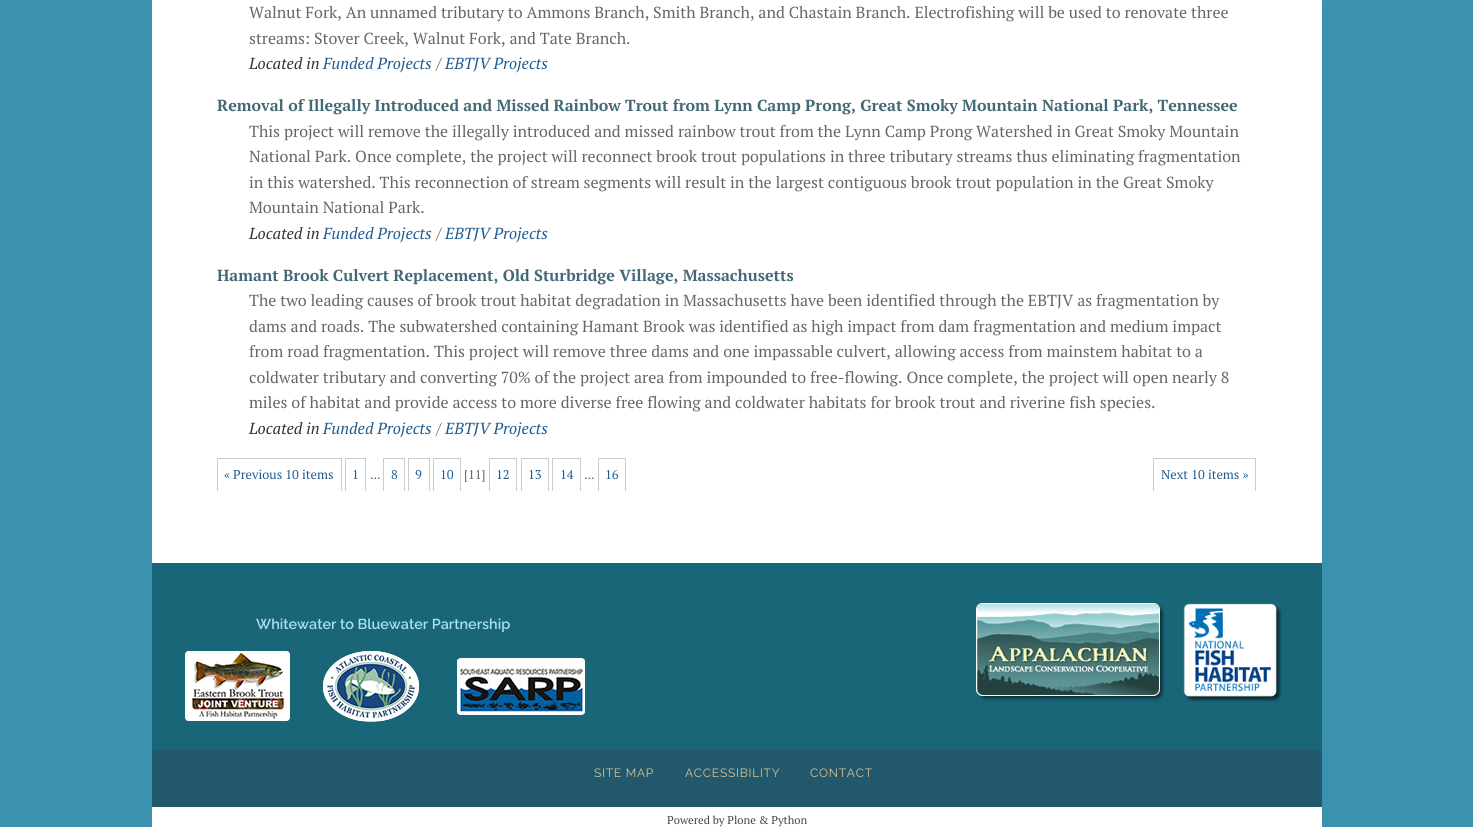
#include <cairo/cairo.h>
#include <math.h>
#include <stddef.h>

static cairo_t *cr;

static void use_color(int r, int g, int b) {
  cairo_set_source_rgb(cr, r / 255.0, g / 255.0, b / 255.0);
}

static void text(double x, double y, const char *s, const char *family, double size, int italic, int bold, int r, int g, int b) {
  cairo_select_font_face(cr, family, italic ? CAIRO_FONT_SLANT_ITALIC : CAIRO_FONT_SLANT_NORMAL,
    bold ? CAIRO_FONT_WEIGHT_BOLD : CAIRO_FONT_WEIGHT_NORMAL);
  cairo_set_font_size(cr, size);
  use_color(r, g, b);
  cairo_move_to(cr, x, y);
  cairo_show_text(cr, s);
}

static void spaced_text(double x, double y, const char *s, double letter, double word) {
  cairo_move_to(cr, x, y);
  while (*s) {
    char ch[5] = {0};
    int n = 0;
    do ch[n++] = *s++; while ((*s & 0xC0) == 0x80);
    cairo_show_text(cr, ch);
    cairo_rel_move_to(cr, letter + word * (*ch == ' '), 0);
  }
}

static void box(double x, double y, double w, double h, int r, int g, int b) {
  use_color(r, g, b);
  cairo_rectangle(cr, x, y, w, h);
  cairo_fill(cr);
}

static void picture(const char *path, double x, double y, double w, double h) {
  cairo_surface_t *image = cairo_image_surface_create_from_png(path);
  cairo_save(cr);
  cairo_set_source_surface(cr, image, x, y);
  cairo_rectangle(cr, x, y, w, h);
  cairo_fill(cr);
  cairo_restore(cr);
  cairo_surface_destroy(image);
}

static void draw(void) {
  cairo_pattern_t *gradient;
  use_color(255, 255, 255);
  cairo_paint(cr);
  gradient = cairo_pattern_create_linear(737, 827, 737, -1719);
  cairo_pattern_add_color_stop_rgba(gradient, 0.32, 0.231, 0.573, 0.686, 1);
  cairo_pattern_add_color_stop_rgba(gradient, 1, 0.749, 1, 0.937, 1);
  cairo_set_source(cr, gradient);
  cairo_pattern_destroy(gradient);
  cairo_rectangle(cr, 0, 0, 1473, 827);
  cairo_fill(cr);
  box(152, 0, 1170, 827, 255, 255, 255);
  box(217, 458, 125, 1, 204, 204, 204);
  box(341, 458, 1, 33, 204, 204, 204);
  box(217, 458, 1, 33, 204, 204, 204);
  box(345, 458, 21, 1, 204, 204, 204);
  box(365, 458, 1, 33, 204, 204, 204);
  box(345, 458, 1, 33, 204, 204, 204);
  box(383, 458, 22, 1, 204, 204, 204);
  box(404, 458, 1, 33, 204, 204, 204);
  box(383, 458, 1, 33, 204, 204, 204);
  box(408, 458, 22, 1, 204, 204, 204);
  box(429, 458, 1, 33, 204, 204, 204);
  box(408, 458, 1, 33, 204, 204, 204);
  box(433, 458, 28, 1, 204, 204, 204);
  box(460, 458, 1, 33, 204, 204, 204);
  box(433, 458, 1, 33, 204, 204, 204);
  box(489, 458, 28, 1, 204, 204, 204);
  box(516, 458, 1, 33, 204, 204, 204);
  box(489, 458, 1, 33, 204, 204, 204);
  box(521, 458, 28, 1, 204, 204, 204);
  box(548, 458, 1, 33, 204, 204, 204);
  box(521, 458, 1, 33, 204, 204, 204);
  box(552, 458, 29, 1, 204, 204, 204);
  box(580, 458, 1, 33, 204, 204, 204);
  box(552, 458, 1, 33, 204, 204, 204);
  box(598, 458, 28, 1, 204, 204, 204);
  box(625, 458, 1, 33, 204, 204, 204);
  box(598, 458, 1, 33, 204, 204, 204);
  box(1153, 458, 103, 1, 204, 204, 204);
  box(1255, 458, 1, 33, 204, 204, 204);
  box(1153, 458, 1, 33, 204, 204, 204);
  box(152, 563, 1170, 187, 25, 102, 120);
  picture("img_01.png", 185, 651, 105, 70);
  picture("img_02.png", 323, 651, 96, 71);
  picture("img_03.png", 457, 658, 128, 57);
  picture("img_04.png", 976, 603, 189, 99);
  picture("img_05.png", 1183, 603, 99, 99);
  box(152, 750, 1170, 57, 34, 88, 107);
  text(249, 18, "Walnut Fork, An unnamed tributary to Ammons Branch, Smith Branch, and Chastain Branch. Electrofishing will be used to renovate three", "PT Serif", 16, 0, 0, 102, 102, 102);
  text(249, 44, "streams: Stover Creek, Walnut Fork, and Tate Branch.", "PT Serif", 16, 0, 0, 102, 102, 102);
  text(249, 69, "Located in", "PT Serif", 16, 1, 0, 51, 51, 51);
  text(323, 69, "Funded Projects", "PT Serif", 16, 1, 0, 32, 92, 144);
  text(436, 69, "/", "PT Serif", 16, 1, 0, 102, 102, 102);
  text(445, 69, "EBTJV Projects", "PT Serif", 16, 1, 0, 32, 92, 144);
  text(217, 111, "Removal of Illegally Introduced and Missed Rainbow Trout from Lynn Camp Prong, Great Smoky Mountain National Park, Tennessee", "PT Serif", 16, 0, 1, 67, 105, 118);
  text(249, 137, "This project will remove the illegally introduced and missed rainbow trout from the Lynn Camp Prong Watershed in Great Smoky Mountain", "PT Serif", 16, 0, 0, 102, 102, 102);
  text(249, 162, "National Park. Once complete, the project will reconnect brook trout populations in three tributary streams thus eliminating fragmentation", "PT Serif", 16, 0, 0, 102, 102, 102);
  text(249, 188, "in this watershed. This reconnection of stream segments will result in the largest contiguous brook trout population in the Great Smoky", "PT Serif", 16, 0, 0, 102, 102, 102);
  text(249, 213, "Mountain National Park.", "PT Serif", 16, 0, 0, 102, 102, 102);
  text(249, 239, "Located in", "PT Serif", 16, 1, 0, 51, 51, 51);
  text(323, 239, "Funded Projects", "PT Serif", 16, 1, 0, 32, 92, 144);
  text(436, 239, "/", "PT Serif", 16, 1, 0, 102, 102, 102);
  text(445, 239, "EBTJV Projects", "PT Serif", 16, 1, 0, 32, 92, 144);
  text(217, 281, "Hamant Brook Culvert Replacement, Old Sturbridge Village, Massachusetts", "PT Serif", 16, 0, 1, 67, 105, 118);
  text(249, 306, "The two leading causes of brook trout habitat degradation in Massachusetts have been identified through the EBTJV as fragmentation by", "PT Serif", 16, 0, 0, 102, 102, 102);
  text(249, 332, "dams and roads. The subwatershed containing Hamant Brook was identified as high impact from dam fragmentation and medium impact", "PT Serif", 16, 0, 0, 102, 102, 102);
  text(249, 357, "from road fragmentation. This project will remove three dams and one impassable culvert, allowing access from mainstem habitat to a", "PT Serif", 16, 0, 0, 102, 102, 102);
  text(249, 383, "coldwater tributary and converting 70% of the project area from impounded to free-flowing. Once complete, the project will open nearly 8", "PT Serif", 16, 0, 0, 102, 102, 102);
  text(249, 408, "miles of habitat and provide access to more diverse free flowing and coldwater habitats for brook trout and riverine fish species.", "PT Serif", 16, 0, 0, 102, 102, 102);
  text(249, 434, "Located in", "PT Serif", 16, 1, 0, 51, 51, 51);
  text(323, 434, "Funded Projects", "PT Serif", 16, 1, 0, 32, 92, 144);
  text(436, 434, "/", "PT Serif", 16, 1, 0, 102, 102, 102);
  text(445, 434, "EBTJV Projects", "PT Serif", 16, 1, 0, 32, 92, 144);
  text(224, 479, "« Previous 10 items", "PT Serif", 12.75, 0, 0, 32, 92, 144);
  text(352, 479, "1", "PT Serif", 12.75, 0, 0, 32, 92, 144);
  text(370, 479, "...", "PT Serif", 12.75, 0, 0, 102, 102, 102);
  text(391, 479, "8", "PT Serif", 12.75, 0, 0, 32, 92, 144);
  text(415, 479, "9", "PT Serif", 12.75, 0, 0, 32, 92, 144);
  text(440, 479, "10", "PT Serif", 12.75, 0, 0, 32, 92, 144);
  text(464, 479, "[11]", "PT Serif", 12.75, 0, 0, 102, 102, 102);
  text(496, 479, "12", "PT Serif", 12.75, 0, 0, 32, 92, 144);
  text(528, 479, "13", "PT Serif", 12.75, 0, 0, 32, 92, 144);
  text(560, 479, "14", "PT Serif", 12.75, 0, 0, 32, 92, 144);
  text(584, 479, "...", "PT Serif", 12.75, 0, 0, 102, 102, 102);
  text(605, 479, "16", "PT Serif", 12.75, 0, 0, 32, 92, 144);
  text(1161, 479, "Next 10 items »", "PT Serif", 12.75, 0, 0, 32, 92, 144);
  text(256, 629, "Whitewater to Bluewater Partnership", "Raleway SemiBold", 14.4, 0, 0, 166, 225, 242);
  cairo_select_font_face(cr, "Raleway", CAIRO_FONT_SLANT_NORMAL, CAIRO_FONT_WEIGHT_NORMAL);
  cairo_set_font_size(cr, 12);
  use_color(218, 195, 147);
  spaced_text(594, 777, "SITE MAP", 0.75, 0);
  spaced_text(685, 777, "ACCESSIBILITY", 0.75, 0);
  spaced_text(810, 777, "CONTACT", 0.75, 0);
  text(667, 824, "Powered by Plone & Python", "PT Serif", 11.25, 0, 0, 68, 68, 68);
}

int main(void) {
  cairo_surface_t *surface = cairo_image_surface_create(CAIRO_FORMAT_RGB24, 1473, 827);
  cr = cairo_create(surface);
  cairo_font_options_t *options = cairo_font_options_create();
  cairo_font_options_set_hint_metrics(options, CAIRO_HINT_METRICS_OFF);
  cairo_font_options_set_hint_style(options, CAIRO_HINT_STYLE_NONE);
  cairo_set_font_options(cr, options);
  cairo_set_miter_limit(cr, 4);
  draw();
  cairo_surface_write_to_png(surface, "out.png");
  cairo_font_options_destroy(options);
  cairo_destroy(cr);
  cairo_surface_destroy(surface);
  return 0;
}
